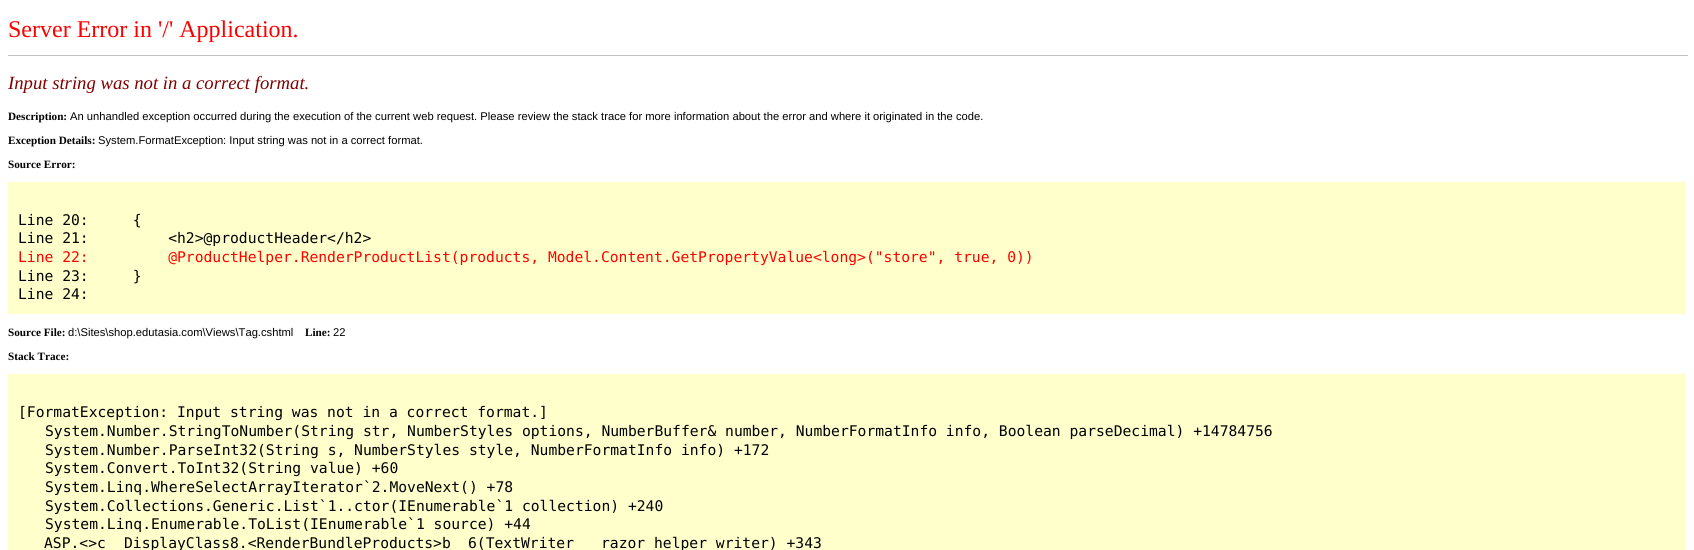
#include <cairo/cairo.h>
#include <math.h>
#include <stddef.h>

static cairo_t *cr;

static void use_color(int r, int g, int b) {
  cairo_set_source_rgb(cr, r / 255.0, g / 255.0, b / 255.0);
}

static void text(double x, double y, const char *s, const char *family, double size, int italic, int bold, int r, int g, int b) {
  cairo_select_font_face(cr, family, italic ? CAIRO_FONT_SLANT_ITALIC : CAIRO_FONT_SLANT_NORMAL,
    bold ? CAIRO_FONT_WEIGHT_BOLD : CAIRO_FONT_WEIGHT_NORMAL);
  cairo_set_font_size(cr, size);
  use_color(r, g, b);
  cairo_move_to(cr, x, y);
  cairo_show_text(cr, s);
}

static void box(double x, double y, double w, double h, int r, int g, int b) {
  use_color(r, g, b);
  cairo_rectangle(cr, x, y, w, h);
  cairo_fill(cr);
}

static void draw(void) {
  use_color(255, 255, 255);
  cairo_paint(cr);
  box(8, 55, 1680, 1, 192, 192, 192);
  box(8, 182, 1678, 132, 255, 255, 204);
  box(8, 374, 1678, 176, 255, 255, 204);
  text(8, 37, "Server Error in '/' Application.", "Liberation Serif", 24, 0, 0, 255, 0, 0);
  text(8, 89, "Input string was not in a correct format.", "Liberation Serif", 18.7, 1, 0, 128, 0, 0);
  text(8, 120, "Description:", "Liberation Serif", 11.2, 0, 1, 0, 0, 0);
  text(70, 120, "An unhandled exception occurred during the execution of the current web request. Please review the stack trace for more information about the error and where it originated in the code.", "Liberation Sans", 11.2, 0, 0, 0, 0, 0);
  text(8, 144, "Exception Details:", "Liberation Serif", 11.2, 0, 1, 0, 0, 0);
  text(98, 144, "System.FormatException: Input string was not in a correct format.", "Liberation Sans", 11.2, 0, 0, 0, 0, 0);
  text(8, 168, "Source Error:", "Liberation Serif", 11.2, 0, 1, 0, 0, 0);
  text(18, 225, "Line 20:     {", "DejaVu Sans Mono", 14.67, 0, 0, 0, 0, 0);
  text(18, 243, "Line 21:         <h2>@productHeader</h2>", "DejaVu Sans Mono", 14.67, 0, 0, 0, 0, 0);
  text(18, 262, "Line 22:         @ProductHelper.RenderProductList(products, Model.Content.GetPropertyValue<long>(\"store\", true, 0))", "DejaVu Sans Mono", 14.67, 0, 0, 255, 0, 0);
  text(18, 281, "Line 23:     }", "DejaVu Sans Mono", 14.67, 0, 0, 0, 0, 0);
  text(18, 299, "Line 24:", "DejaVu Sans Mono", 14.67, 0, 0, 0, 0, 0);
  text(8, 336, "Source File:", "Liberation Serif", 11.2, 0, 1, 0, 0, 0);
  text(68, 336, "d:\\Sites\\shop.edutasia.com\\Views\\Tag.cshtml", "Liberation Sans", 11.2, 0, 0, 0, 0, 0);
  text(305, 336, "Line:", "Liberation Serif", 11.2, 0, 1, 0, 0, 0);
  text(333, 336, "22", "Liberation Sans", 11.2, 0, 0, 0, 0, 0);
  text(8, 360, "Stack Trace:", "Liberation Serif", 11.2, 0, 1, 0, 0, 0);
  text(18, 417, "[FormatException: Input string was not in a correct format.]", "DejaVu Sans Mono", 14.67, 0, 0, 0, 0, 0);
  text(45, 436, "System.Number.StringToNumber(String str, NumberStyles options, NumberBuffer& number, NumberFormatInfo info, Boolean parseDecimal) +14784756", "DejaVu Sans Mono", 14.67, 0, 0, 0, 0, 0);
  text(45, 455, "System.Number.ParseInt32(String s, NumberStyles style, NumberFormatInfo info) +172", "DejaVu Sans Mono", 14.67, 0, 0, 0, 0, 0);
  text(45, 473, "System.Convert.ToInt32(String value) +60", "DejaVu Sans Mono", 14.67, 0, 0, 0, 0, 0);
  text(45, 492, "System.Linq.WhereSelectArrayIterator`2.MoveNext() +78", "DejaVu Sans Mono", 14.67, 0, 0, 0, 0, 0);
  text(45, 511, "System.Collections.Generic.List`1..ctor(IEnumerable`1 collection) +240", "DejaVu Sans Mono", 14.67, 0, 0, 0, 0, 0);
  text(45, 529, "System.Linq.Enumerable.ToList(IEnumerable`1 source) +44", "DejaVu Sans Mono", 14.67, 0, 0, 0, 0, 0);
  text(44, 548, "ASP.<>c", "DejaVu Sans Mono", 14.67, 0, 0, 0, 0, 0);
  text(124, 548, "DisplayClass8.<RenderBundleProducts>b", "DejaVu Sans Mono", 14.67, 0, 0, 0, 0, 0);
  text(468, 548, "6(TextWriter", "DejaVu Sans Mono", 14.67, 0, 0, 0, 0, 0);
  text(601, 548, "razor_helper_writer) +343", "DejaVu Sans Mono", 14.67, 0, 0, 0, 0, 0);
}

int main(void) {
  cairo_surface_t *surface = cairo_image_surface_create(CAIRO_FORMAT_RGB24, 1694, 550);
  cr = cairo_create(surface);
  cairo_font_options_t *options = cairo_font_options_create();
  cairo_font_options_set_hint_metrics(options, CAIRO_HINT_METRICS_OFF);
  cairo_font_options_set_hint_style(options, CAIRO_HINT_STYLE_NONE);
  cairo_set_font_options(cr, options);
  cairo_set_miter_limit(cr, 4);
  draw();
  cairo_surface_write_to_png(surface, "out.png");
  cairo_font_options_destroy(options);
  cairo_destroy(cr);
  cairo_surface_destroy(surface);
  return 0;
}
